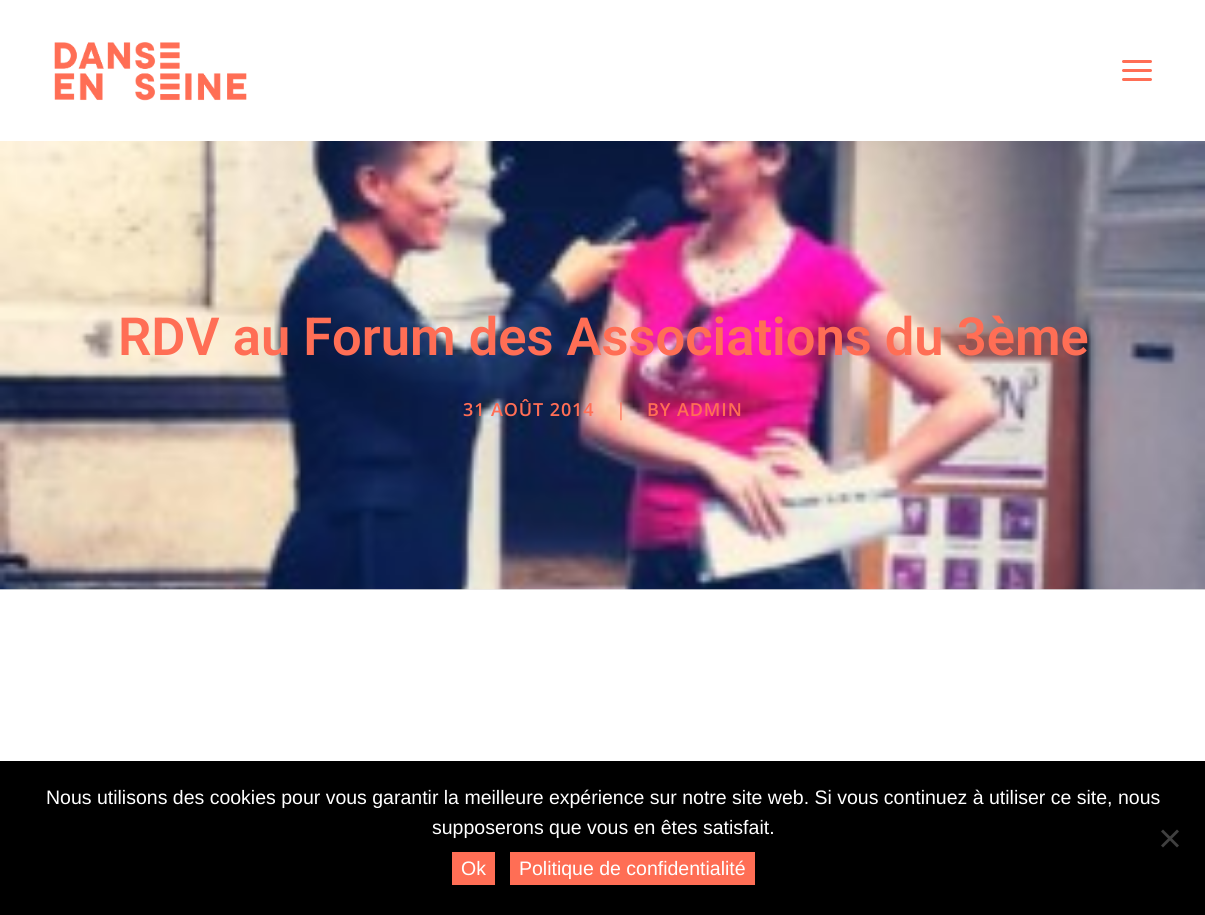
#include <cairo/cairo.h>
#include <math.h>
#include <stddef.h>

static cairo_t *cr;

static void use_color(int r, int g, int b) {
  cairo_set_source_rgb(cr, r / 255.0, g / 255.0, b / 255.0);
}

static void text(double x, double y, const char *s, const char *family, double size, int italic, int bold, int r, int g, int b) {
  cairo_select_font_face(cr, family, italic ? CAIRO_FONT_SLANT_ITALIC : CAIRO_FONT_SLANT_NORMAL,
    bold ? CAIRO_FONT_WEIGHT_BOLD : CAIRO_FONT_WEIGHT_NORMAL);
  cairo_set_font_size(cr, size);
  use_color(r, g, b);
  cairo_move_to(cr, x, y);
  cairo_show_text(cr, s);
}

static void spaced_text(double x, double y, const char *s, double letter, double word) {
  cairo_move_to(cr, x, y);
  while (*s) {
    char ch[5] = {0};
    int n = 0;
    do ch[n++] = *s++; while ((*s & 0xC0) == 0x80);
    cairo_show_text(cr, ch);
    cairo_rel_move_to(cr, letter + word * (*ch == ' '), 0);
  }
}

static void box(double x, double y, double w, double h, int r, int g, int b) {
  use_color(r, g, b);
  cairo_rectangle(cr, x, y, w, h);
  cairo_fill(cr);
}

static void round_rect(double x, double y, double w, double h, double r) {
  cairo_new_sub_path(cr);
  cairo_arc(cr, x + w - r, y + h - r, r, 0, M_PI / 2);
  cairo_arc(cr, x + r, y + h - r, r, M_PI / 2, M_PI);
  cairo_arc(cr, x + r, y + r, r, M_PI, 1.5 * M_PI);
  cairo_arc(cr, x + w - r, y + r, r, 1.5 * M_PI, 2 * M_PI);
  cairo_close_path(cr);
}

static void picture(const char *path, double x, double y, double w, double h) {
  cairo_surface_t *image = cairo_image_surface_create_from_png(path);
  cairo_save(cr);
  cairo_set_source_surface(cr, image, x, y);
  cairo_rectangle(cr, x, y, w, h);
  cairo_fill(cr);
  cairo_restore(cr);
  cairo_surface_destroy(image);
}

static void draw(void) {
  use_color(234, 234, 234);
  cairo_paint(cr);
  box(0, 0, 1205, 141, 255, 255, 255);
  picture("img_01.png", 54, 42, 193, 59);
  use_color(255, 110, 85);
  round_rect(1122, 69, 30, 3, 1.5);
  cairo_fill(cr);
  round_rect(1122, 60, 30, 3, 1.5);
  cairo_fill(cr);
  round_rect(1122, 78, 30, 3, 1.5);
  cairo_fill(cr);
  picture("img_02.png", 0, 141, 1205, 449);
  box(0, 590, 1205, 171, 255, 255, 255);
  box(0, 761, 1205, 154, 0, 0, 0);
  use_color(64, 64, 64);
  cairo_new_path(cr);
  cairo_move_to(cr, 1177, 829.5);
  cairo_line_to(cr, 1179, 831.5);
  cairo_line_to(cr, 1163, 847.5);
  cairo_line_to(cr, 1161, 845.5);
  cairo_close_path(cr);
  cairo_fill(cr);
  cairo_new_path(cr);
  cairo_move_to(cr, 1161, 831.5);
  cairo_line_to(cr, 1163, 829.5);
  cairo_line_to(cr, 1179, 845.5);
  cairo_line_to(cr, 1177, 847.5);
  cairo_close_path(cr);
  cairo_fill(cr);
  box(452, 852, 43, 33, 255, 110, 85);
  box(510, 852, 245, 33, 255, 110, 85);
  text(118, 355, "RDV au Forum des Associations du 3ème", "Roboto SemiBold", 52.5, 0, 0, 255, 110, 85);
  cairo_select_font_face(cr, "Open Sans SemiBold", CAIRO_FONT_SLANT_NORMAL, CAIRO_FONT_WEIGHT_NORMAL);
  cairo_set_font_size(cr, 18);
  spaced_text(463, 416, "31 AOÛT 2014", 0.9, 0);
  cairo_select_font_face(cr, "Open Sans", CAIRO_FONT_SLANT_NORMAL, CAIRO_FONT_WEIGHT_NORMAL);
  spaced_text(616, 416, "|", 0.9, 0);
  cairo_select_font_face(cr, "Open Sans SemiBold", CAIRO_FONT_SLANT_NORMAL, CAIRO_FONT_WEIGHT_NORMAL);
  spaced_text(647, 416, "BY ADMIN", 0.9, 0);
  text(46, 804, "Nous utilisons des cookies pour vous garantir la meilleure expérience sur notre site web. Si vous continuez à utiliser ce site, nous", "Liberation Sans", 19.5, 0, 0, 255, 255, 255);
  text(432, 834, "supposerons que vous en êtes satisfait.", "Liberation Sans", 19.5, 0, 0, 255, 255, 255);
  text(461, 875, "Ok", "Liberation Sans", 19.5, 0, 0, 255, 255, 255);
  text(519, 875, "Politique de confidentialité", "Liberation Sans", 19.5, 0, 0, 255, 255, 255);
}

int main(void) {
  cairo_surface_t *surface = cairo_image_surface_create(CAIRO_FORMAT_RGB24, 1205, 915);
  cr = cairo_create(surface);
  cairo_font_options_t *options = cairo_font_options_create();
  cairo_font_options_set_hint_metrics(options, CAIRO_HINT_METRICS_OFF);
  cairo_font_options_set_hint_style(options, CAIRO_HINT_STYLE_NONE);
  cairo_set_font_options(cr, options);
  cairo_set_miter_limit(cr, 4);
  draw();
  cairo_surface_write_to_png(surface, "out.png");
  cairo_font_options_destroy(options);
  cairo_destroy(cr);
  cairo_surface_destroy(surface);
  return 0;
}
